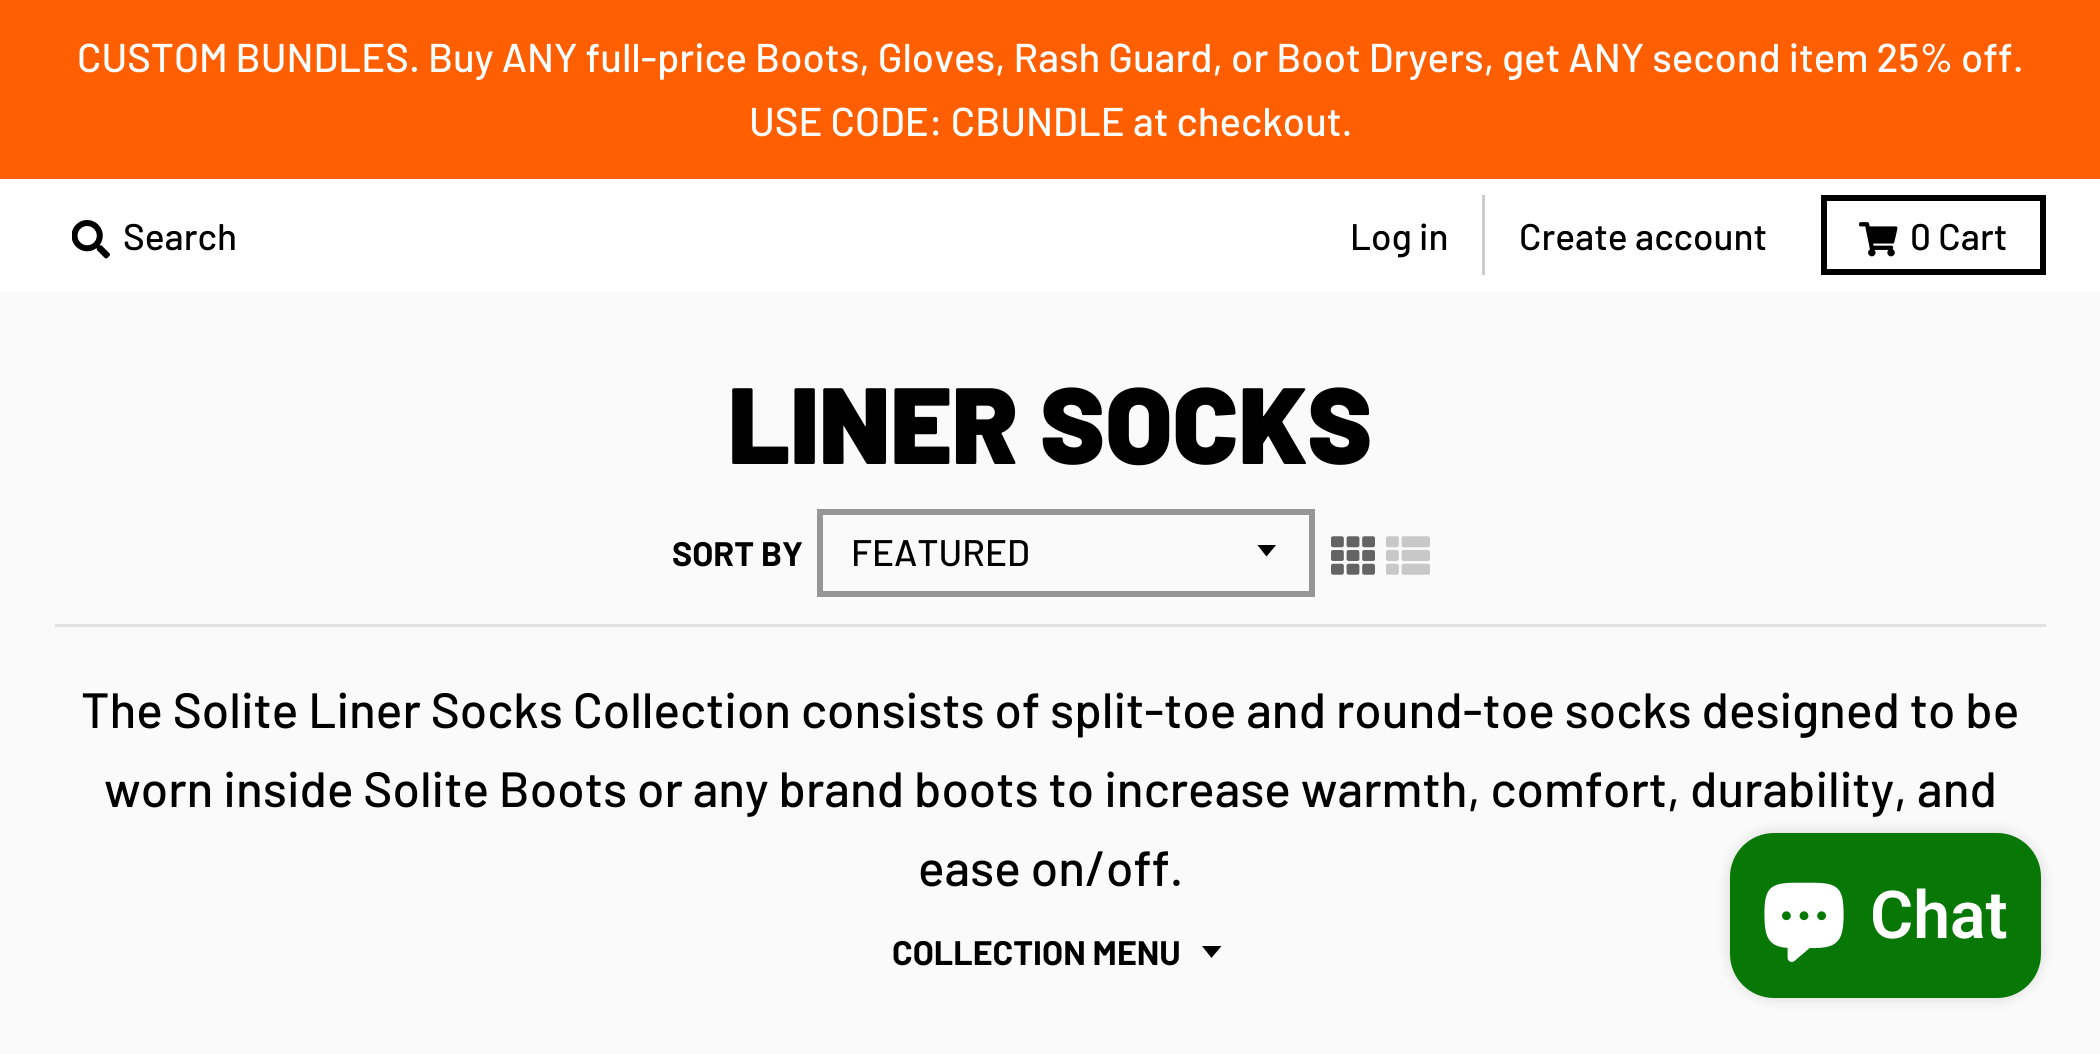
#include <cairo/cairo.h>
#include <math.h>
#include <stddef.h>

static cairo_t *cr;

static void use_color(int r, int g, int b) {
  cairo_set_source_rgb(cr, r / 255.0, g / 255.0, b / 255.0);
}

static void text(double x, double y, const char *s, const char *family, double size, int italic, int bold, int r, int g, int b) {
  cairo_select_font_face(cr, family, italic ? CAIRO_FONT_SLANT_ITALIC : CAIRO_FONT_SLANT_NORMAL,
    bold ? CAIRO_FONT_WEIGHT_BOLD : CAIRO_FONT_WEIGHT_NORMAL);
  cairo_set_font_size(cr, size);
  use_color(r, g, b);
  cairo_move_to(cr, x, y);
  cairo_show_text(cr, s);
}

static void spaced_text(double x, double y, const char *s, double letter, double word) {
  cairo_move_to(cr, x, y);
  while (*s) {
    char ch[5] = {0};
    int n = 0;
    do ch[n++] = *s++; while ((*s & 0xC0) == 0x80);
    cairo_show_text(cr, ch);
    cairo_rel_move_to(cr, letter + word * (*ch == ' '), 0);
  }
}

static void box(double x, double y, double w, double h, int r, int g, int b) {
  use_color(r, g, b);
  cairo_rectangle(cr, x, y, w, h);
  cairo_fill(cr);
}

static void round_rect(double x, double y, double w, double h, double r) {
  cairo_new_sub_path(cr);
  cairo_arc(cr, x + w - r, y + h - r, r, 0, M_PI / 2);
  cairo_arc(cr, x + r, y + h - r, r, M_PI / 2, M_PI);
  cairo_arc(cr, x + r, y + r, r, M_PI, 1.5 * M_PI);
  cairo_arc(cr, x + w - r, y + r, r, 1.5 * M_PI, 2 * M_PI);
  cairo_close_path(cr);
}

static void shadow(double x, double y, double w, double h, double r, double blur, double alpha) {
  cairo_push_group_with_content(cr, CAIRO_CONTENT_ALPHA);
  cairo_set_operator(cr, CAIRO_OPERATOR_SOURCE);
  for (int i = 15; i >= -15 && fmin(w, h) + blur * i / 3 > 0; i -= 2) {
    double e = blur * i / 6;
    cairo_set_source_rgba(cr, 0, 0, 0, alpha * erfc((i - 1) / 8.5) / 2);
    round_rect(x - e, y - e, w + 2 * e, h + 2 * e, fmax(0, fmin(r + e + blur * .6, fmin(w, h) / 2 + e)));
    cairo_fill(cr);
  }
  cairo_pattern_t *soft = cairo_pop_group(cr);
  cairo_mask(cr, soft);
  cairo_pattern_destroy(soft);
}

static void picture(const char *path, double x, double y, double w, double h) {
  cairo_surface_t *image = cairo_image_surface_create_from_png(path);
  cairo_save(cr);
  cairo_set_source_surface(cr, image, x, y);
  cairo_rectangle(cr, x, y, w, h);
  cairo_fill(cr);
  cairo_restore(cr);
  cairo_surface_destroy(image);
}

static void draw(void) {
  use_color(250, 250, 250);
  cairo_paint(cr);
  box(0, 0, 2100, 179, 255, 95, 0);
  box(0, 179, 2100, 113, 255, 255, 255);
  picture("img_01.png", 72, 220, 38, 39);
  box(1482, 195, 3, 80, 204, 204, 204);
  cairo_rectangle(cr, 1824, 198, 219, 74);
  use_color(0, 0, 0);
  cairo_set_line_width(cr, 6);
  cairo_stroke(cr);
  picture("img_02.png", 1859, 222, 39, 35);
  box(55, 624, 1991, 3, 225, 225, 225);
  cairo_save(cr);
  cairo_rectangle(cr, 1257, 545, 22, 13);
  cairo_clip(cr);
  use_color(0, 0, 0);
  cairo_new_path(cr);
  cairo_move_to(cr, 1257, 544.5);
  cairo_line_to(cr, 1266.5, 556.5);
  cairo_line_to(cr, 1276.5, 544.5);
  cairo_close_path(cr);
  cairo_fill(cr);
  cairo_restore(cr);
  cairo_rectangle(cr, 820, 512, 492, 82);
  use_color(150, 150, 150);
  cairo_stroke(cr);
  picture("img_03.png", 1331, 536, 44, 39);
  picture("img_04.png", 1386, 536, 44, 39);
  use_color(0, 0, 0);
  cairo_new_path(cr);
  cairo_move_to(cr, 1202, 946);
  cairo_line_to(cr, 1211.5, 958);
  cairo_line_to(cr, 1221.5, 946);
  cairo_close_path(cr);
  cairo_fill(cr);
  use_color(0, 0, 0);
  shadow(1730, 833, 311, 165, 44, 7, 0.15);
  use_color(7, 120, 6);
  round_rect(1730, 833, 311, 165, 44);
  cairo_fill(cr);
  picture("img_05.png", 1764, 882, 80, 80);
  cairo_select_font_face(cr, "Barlow Medium", CAIRO_FONT_SLANT_NORMAL, CAIRO_FONT_WEIGHT_NORMAL);
  cairo_set_font_size(cr, 40.2);
  use_color(255, 255, 255);
  spaced_text(77, 72, "CUSTOM BUNDLES. Buy ANY full-price Boots, Gloves, Rash Guard, or Boot Dryers, get ANY second item 25% off.", 0, -0.1);
  text(749, 136, "USE CODE: CBUNDLE at checkout.", "Barlow Medium", 40.2, 0, 0, 255, 255, 255);
  text(123, 250, "Search", "Barlow Medium", 37, 0, 0, 0, 0, 0);
  text(1350, 250, "Log in", "Barlow Medium", 37, 0, 0, 0, 0, 0);
  text(1519, 250, "Create account", "Barlow Medium", 37, 0, 0, 0, 0, 0);
  text(1910, 250, "0 Cart", "Barlow Medium", 37, 0, 0, 0, 0, 0);
  text(728, 464, "LINER SOCKS", "Barlow Black", 108.25, 0, 0, 0, 0, 0);
  text(672, 566, "SORT BY", "Barlow", 34, 0, 1, 0, 0, 0);
  text(851, 566, "FEATURED", "Barlow Medium", 37, 0, 0, 0, 0, 0);
  text(81, 728, "The Solite Liner Socks Collection consists of split-toe and round-toe socks designed to be", "Barlow Medium", 49.5, 0, 0, 0, 0, 0);
  text(104, 807, "worn inside Solite Boots or any brand boots to increase warmth, comfort, durability, and", "Barlow Medium", 49.5, 0, 0, 0, 0, 0);
  text(918, 886, "ease on/off.", "Barlow Medium", 49.5, 0, 0, 0, 0, 0);
  text(892, 965, "COLLECTION MENU", "Barlow", 34, 0, 1, 0, 0, 0);
  text(1870, 938, "Chat", "Roboto SemiBold", 66, 0, 0, 255, 255, 255);
}

int main(void) {
  cairo_surface_t *surface = cairo_image_surface_create(CAIRO_FORMAT_RGB24, 2100, 1054);
  cr = cairo_create(surface);
  cairo_font_options_t *options = cairo_font_options_create();
  cairo_font_options_set_hint_metrics(options, CAIRO_HINT_METRICS_OFF);
  cairo_font_options_set_hint_style(options, CAIRO_HINT_STYLE_NONE);
  cairo_set_font_options(cr, options);
  cairo_set_miter_limit(cr, 4);
  draw();
  cairo_surface_write_to_png(surface, "out.png");
  cairo_font_options_destroy(options);
  cairo_destroy(cr);
  cairo_surface_destroy(surface);
  return 0;
}
